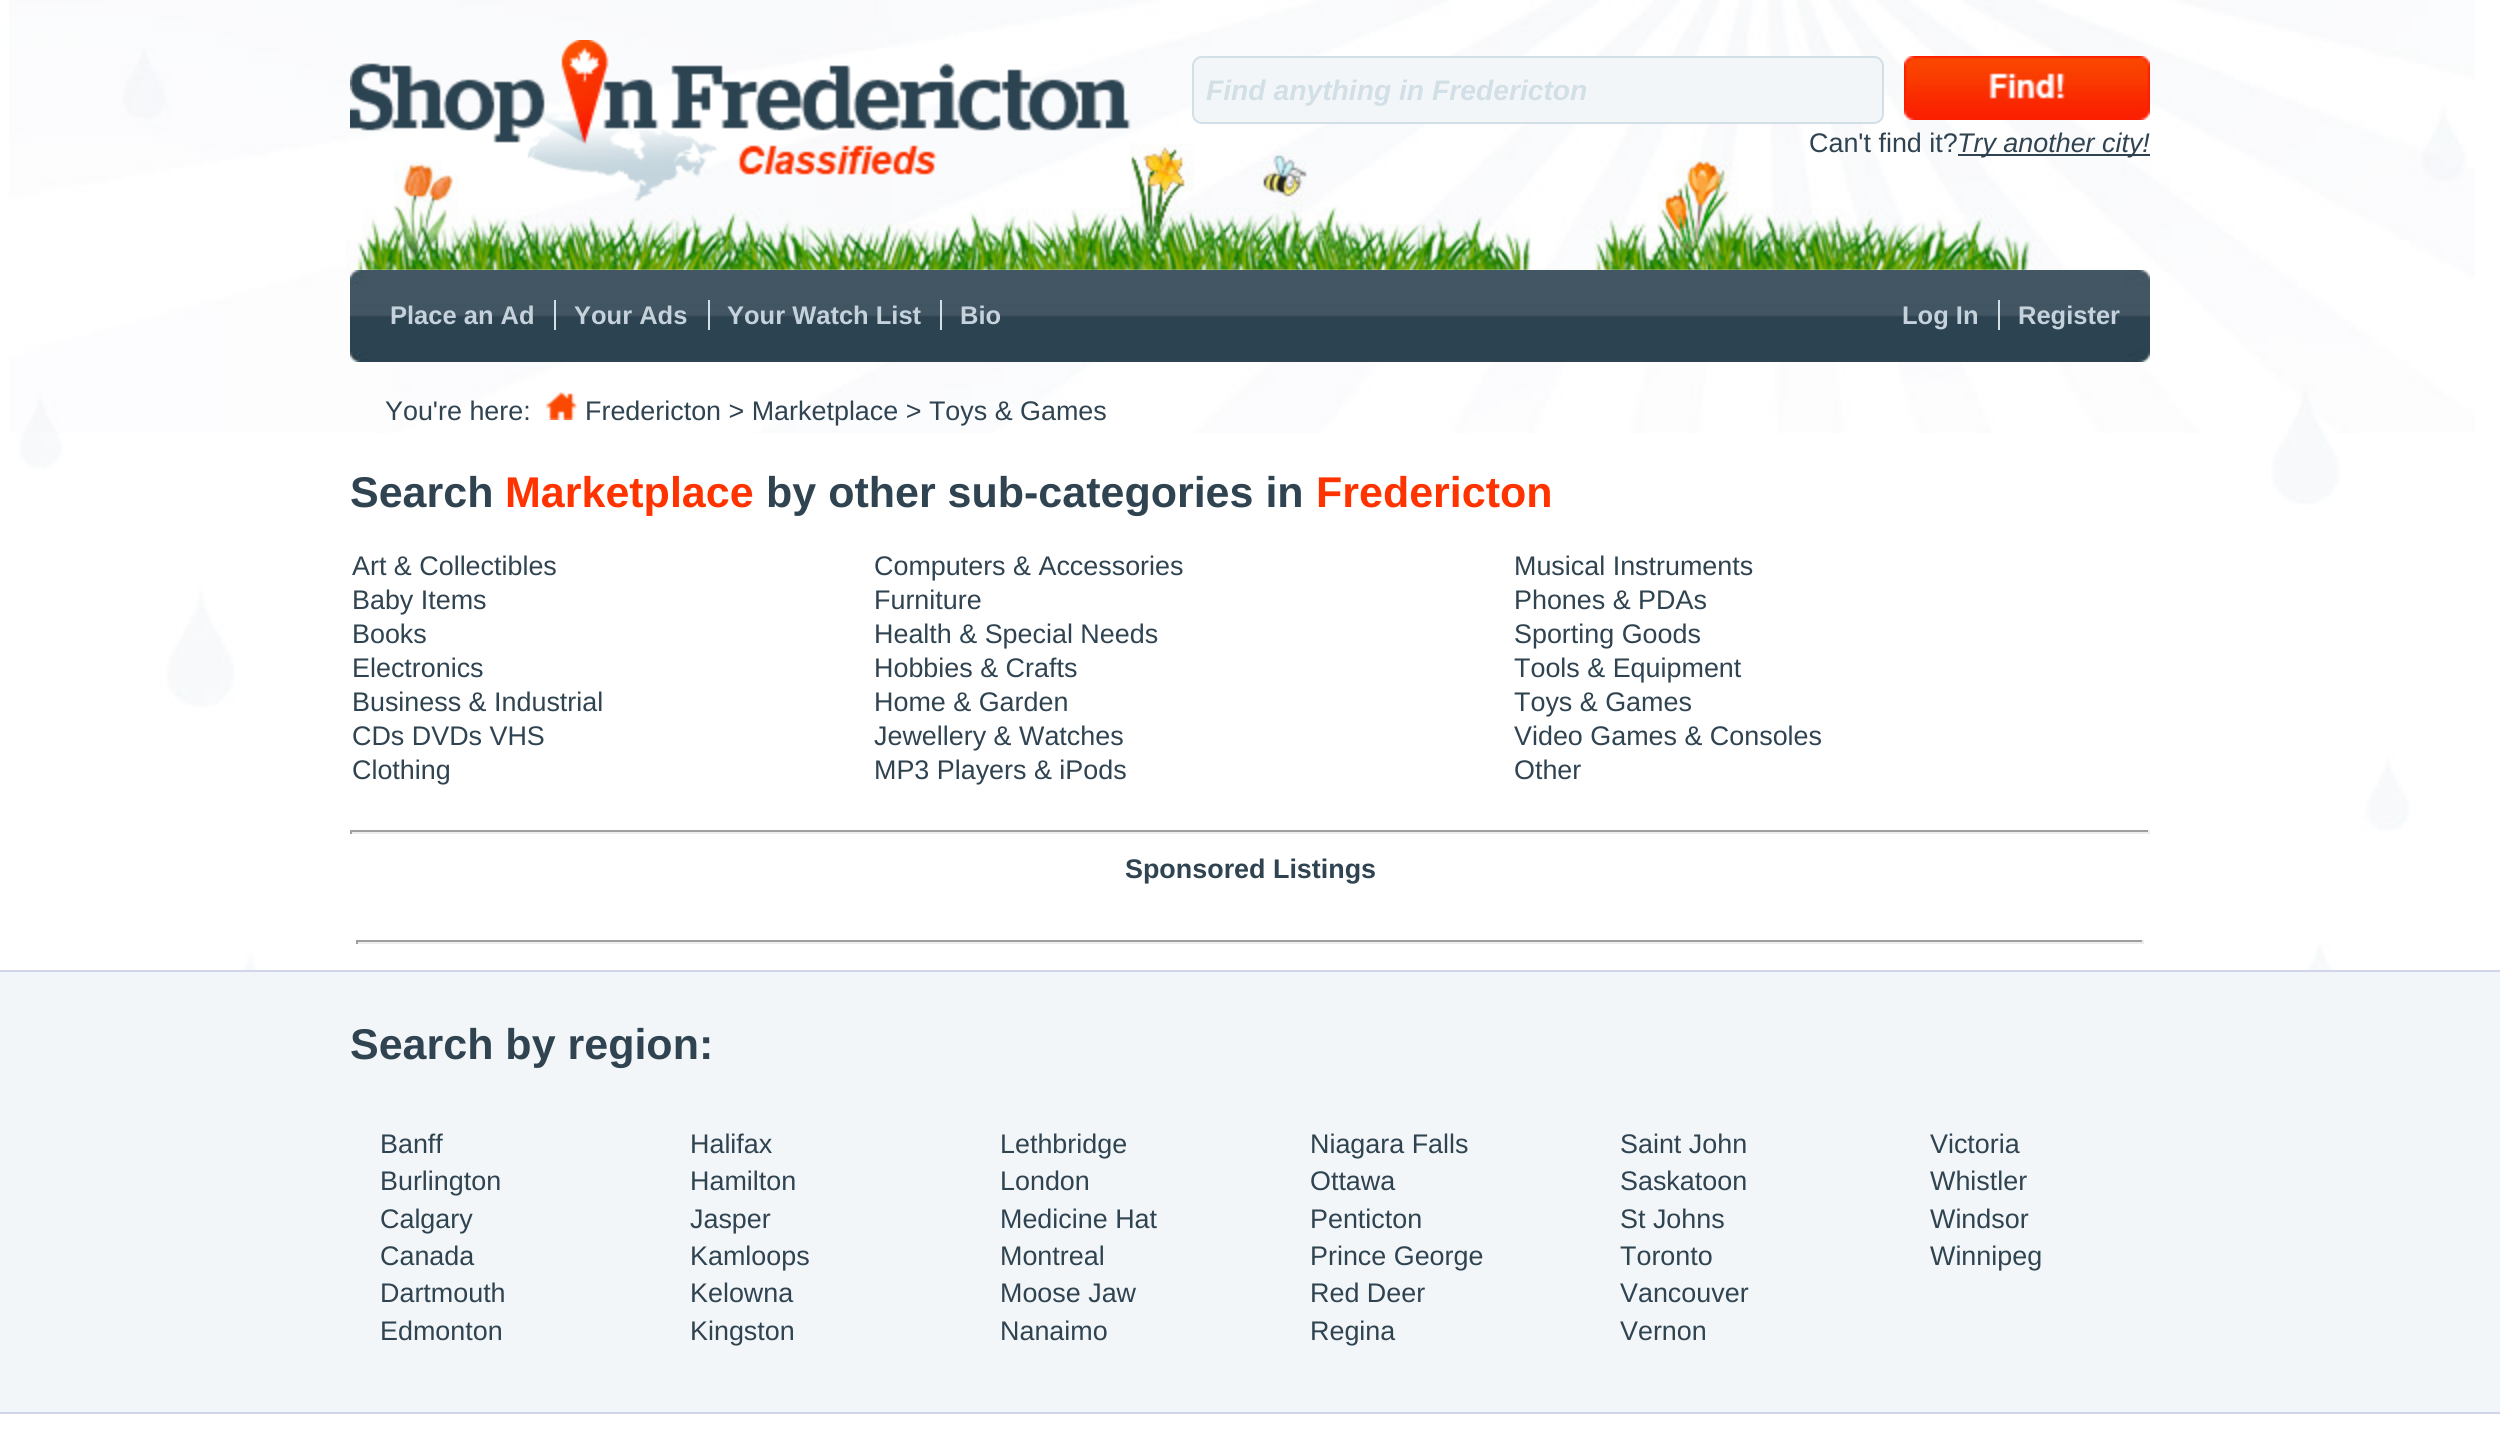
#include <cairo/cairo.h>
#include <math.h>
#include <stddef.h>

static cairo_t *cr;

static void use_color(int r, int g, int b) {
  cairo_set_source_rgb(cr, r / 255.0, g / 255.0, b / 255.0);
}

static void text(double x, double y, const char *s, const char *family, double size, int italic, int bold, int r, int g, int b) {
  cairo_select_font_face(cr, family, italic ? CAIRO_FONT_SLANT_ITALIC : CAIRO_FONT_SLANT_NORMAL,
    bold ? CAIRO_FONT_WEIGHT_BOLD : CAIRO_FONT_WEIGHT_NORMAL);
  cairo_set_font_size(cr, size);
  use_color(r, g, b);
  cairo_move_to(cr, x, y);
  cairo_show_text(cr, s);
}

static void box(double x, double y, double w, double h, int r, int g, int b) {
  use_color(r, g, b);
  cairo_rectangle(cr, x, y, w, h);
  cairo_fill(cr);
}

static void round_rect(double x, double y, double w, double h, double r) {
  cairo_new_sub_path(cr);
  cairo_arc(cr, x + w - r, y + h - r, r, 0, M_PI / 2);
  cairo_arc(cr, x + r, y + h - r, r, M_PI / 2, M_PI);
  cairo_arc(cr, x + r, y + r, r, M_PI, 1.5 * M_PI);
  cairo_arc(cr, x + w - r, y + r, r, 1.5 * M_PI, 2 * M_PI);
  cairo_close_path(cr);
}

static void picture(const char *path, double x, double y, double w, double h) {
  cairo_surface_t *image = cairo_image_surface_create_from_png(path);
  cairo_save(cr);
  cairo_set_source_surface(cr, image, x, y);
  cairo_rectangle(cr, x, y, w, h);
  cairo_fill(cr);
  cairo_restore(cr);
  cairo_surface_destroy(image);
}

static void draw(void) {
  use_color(255, 255, 255);
  cairo_paint(cr);
  picture("img_01.png", 19, 433, 2446, 537);
  picture("img_02.png", 9, 0, 2466, 433);
  picture("img_03.png", 350, 40, 781, 162);
  use_color(242, 246, 248);
  round_rect(1193, 57, 690, 66, 9);
  cairo_fill_preserve(cr);
  use_color(210, 223, 231);
  cairo_stroke(cr);
  picture("img_04.png", 1904, 56, 246, 64);
  box(1958, 154, 192, 2, 47, 67, 81);
  picture("img_05.png", 350, 270, 1800, 92);
  box(554, 300, 2, 30, 210, 223, 231);
  box(708, 300, 2, 30, 210, 223, 231);
  box(940, 300, 2, 30, 210, 223, 231);
  box(1998, 300, 2, 30, 210, 223, 231);
  picture("img_06.png", 546, 392, 32, 28);
  box(350, 830, 1800, 2, 159, 159, 159);
  box(2148, 830, 2, 4, 238, 238, 238);
  box(350, 832, 1800, 2, 238, 238, 238);
  box(350, 830, 2, 4, 159, 159, 159);
  box(356, 940, 1788, 2, 159, 159, 159);
  box(2142, 940, 2, 4, 238, 238, 238);
  box(356, 942, 1788, 2, 238, 238, 238);
  box(356, 940, 2, 4, 159, 159, 159);
  box(0, 972, 2500, 440, 242, 246, 248);
  box(0, 970, 2500, 2, 210, 213, 231);
  box(0, 1412, 2500, 2, 210, 213, 231);
  text(1206, 100, "Find anything in Fredericton", "Liberation Sans", 28.25, 1, 1, 210, 223, 231);
  text(1809, 152, "Can't find it?", "Liberation Sans", 26.9, 0, 0, 47, 67, 81);
  text(1957, 152, "Try another city!", "Liberation Sans", 26.9, 1, 0, 47, 67, 81);
  text(390, 324, "Place an Ad", "Liberation Sans", 25.5, 0, 1, 197, 210, 219);
  text(574, 324, "Your Ads", "Liberation Sans", 25.5, 0, 1, 197, 210, 219);
  text(727, 324, "Your Watch List", "Liberation Sans", 25.5, 0, 1, 197, 210, 219);
  text(960, 324, "Bio", "Liberation Sans", 25.5, 0, 1, 197, 210, 219);
  text(1902, 324, "Log In", "Liberation Sans", 25.5, 0, 1, 197, 210, 219);
  text(2018, 324, "Register", "Liberation Sans", 25.5, 0, 1, 197, 210, 219);
  text(385, 420, "You're here:", "Liberation Sans", 26.9, 0, 0, 47, 67, 81);
  text(585, 420, "Fredericton > Marketplace > Toys & Games", "Liberation Sans", 26.9, 0, 0, 47, 67, 81);
  text(350, 507, "Search", "Liberation Sans", 43, 0, 1, 47, 67, 81);
  text(505, 507, "Marketplace", "Liberation Sans", 43, 0, 1, 255, 51, 0);
  text(766, 507, "by other sub-categories in", "Liberation Sans", 43, 0, 1, 47, 67, 81);
  text(1316, 507, "Fredericton", "Liberation Sans", 43, 0, 1, 255, 51, 0);
  text(352, 575, "Art & Collectibles", "Liberation Sans", 26.9, 0, 0, 47, 67, 81);
  text(874, 575, "Computers & Accessories", "Liberation Sans", 26.9, 0, 0, 47, 67, 81);
  text(1514, 575, "Musical Instruments", "Liberation Sans", 26.9, 0, 0, 47, 67, 81);
  text(352, 609, "Baby Items", "Liberation Sans", 26.9, 0, 0, 47, 67, 81);
  text(874, 609, "Furniture", "Liberation Sans", 26.9, 0, 0, 47, 67, 81);
  text(1514, 609, "Phones & PDAs", "Liberation Sans", 26.9, 0, 0, 47, 67, 81);
  text(352, 643, "Books", "Liberation Sans", 26.9, 0, 0, 47, 67, 81);
  text(874, 643, "Health & Special Needs", "Liberation Sans", 26.9, 0, 0, 47, 67, 81);
  text(1514, 643, "Sporting Goods", "Liberation Sans", 26.9, 0, 0, 47, 67, 81);
  text(352, 677, "Electronics", "Liberation Sans", 26.9, 0, 0, 47, 67, 81);
  text(874, 677, "Hobbies & Crafts", "Liberation Sans", 26.9, 0, 0, 47, 67, 81);
  text(1514, 677, "Tools & Equipment", "Liberation Sans", 26.9, 0, 0, 47, 67, 81);
  text(352, 711, "Business & Industrial", "Liberation Sans", 26.9, 0, 0, 47, 67, 81);
  text(874, 711, "Home & Garden", "Liberation Sans", 26.9, 0, 0, 47, 67, 81);
  text(1514, 711, "Toys & Games", "Liberation Sans", 26.9, 0, 0, 47, 67, 81);
  text(352, 745, "CDs DVDs VHS", "Liberation Sans", 26.9, 0, 0, 47, 67, 81);
  text(874, 745, "Jewellery & Watches", "Liberation Sans", 26.9, 0, 0, 47, 67, 81);
  text(1514, 745, "Video Games & Consoles", "Liberation Sans", 26.9, 0, 0, 47, 67, 81);
  text(352, 779, "Clothing", "Liberation Sans", 26.9, 0, 0, 47, 67, 81);
  text(874, 779, "MP3 Players & iPods", "Liberation Sans", 26.9, 0, 0, 47, 67, 81);
  text(1514, 779, "Other", "Liberation Sans", 26.9, 0, 0, 47, 67, 81);
  text(1125, 878, "Sponsored Listings", "Liberation Sans", 26.9, 0, 1, 47, 67, 81);
  text(350, 1059, "Search by region:", "Liberation Sans", 43, 0, 1, 47, 67, 81);
  text(380, 1153, "Banff", "Liberation Sans", 26.9, 0, 0, 47, 67, 81);
  text(380, 1190, "Burlington", "Liberation Sans", 26.9, 0, 0, 47, 67, 81);
  text(380, 1228, "Calgary", "Liberation Sans", 26.9, 0, 0, 47, 67, 81);
  text(380, 1265, "Canada", "Liberation Sans", 26.9, 0, 0, 47, 67, 81);
  text(380, 1302, "Dartmouth", "Liberation Sans", 26.9, 0, 0, 47, 67, 81);
  text(380, 1340, "Edmonton", "Liberation Sans", 26.9, 0, 0, 47, 67, 81);
  text(690, 1153, "Halifax", "Liberation Sans", 26.9, 0, 0, 47, 67, 81);
  text(690, 1190, "Hamilton", "Liberation Sans", 26.9, 0, 0, 47, 67, 81);
  text(690, 1228, "Jasper", "Liberation Sans", 26.9, 0, 0, 47, 67, 81);
  text(690, 1265, "Kamloops", "Liberation Sans", 26.9, 0, 0, 47, 67, 81);
  text(690, 1302, "Kelowna", "Liberation Sans", 26.9, 0, 0, 47, 67, 81);
  text(690, 1340, "Kingston", "Liberation Sans", 26.9, 0, 0, 47, 67, 81);
  text(1000, 1153, "Lethbridge", "Liberation Sans", 26.9, 0, 0, 47, 67, 81);
  text(1000, 1190, "London", "Liberation Sans", 26.9, 0, 0, 47, 67, 81);
  text(1000, 1228, "Medicine Hat", "Liberation Sans", 26.9, 0, 0, 47, 67, 81);
  text(1000, 1265, "Montreal", "Liberation Sans", 26.9, 0, 0, 47, 67, 81);
  text(1000, 1302, "Moose Jaw", "Liberation Sans", 26.9, 0, 0, 47, 67, 81);
  text(1000, 1340, "Nanaimo", "Liberation Sans", 26.9, 0, 0, 47, 67, 81);
  text(1310, 1153, "Niagara Falls", "Liberation Sans", 26.9, 0, 0, 47, 67, 81);
  text(1310, 1190, "Ottawa", "Liberation Sans", 26.9, 0, 0, 47, 67, 81);
  text(1310, 1228, "Penticton", "Liberation Sans", 26.9, 0, 0, 47, 67, 81);
  text(1310, 1265, "Prince George", "Liberation Sans", 26.9, 0, 0, 47, 67, 81);
  text(1310, 1302, "Red Deer", "Liberation Sans", 26.9, 0, 0, 47, 67, 81);
  text(1310, 1340, "Regina", "Liberation Sans", 26.9, 0, 0, 47, 67, 81);
  text(1620, 1153, "Saint John", "Liberation Sans", 26.9, 0, 0, 47, 67, 81);
  text(1620, 1190, "Saskatoon", "Liberation Sans", 26.9, 0, 0, 47, 67, 81);
  text(1620, 1228, "St Johns", "Liberation Sans", 26.9, 0, 0, 47, 67, 81);
  text(1620, 1265, "Toronto", "Liberation Sans", 26.9, 0, 0, 47, 67, 81);
  text(1620, 1302, "Vancouver", "Liberation Sans", 26.9, 0, 0, 47, 67, 81);
  text(1620, 1340, "Vernon", "Liberation Sans", 26.9, 0, 0, 47, 67, 81);
  text(1930, 1153, "Victoria", "Liberation Sans", 26.9, 0, 0, 47, 67, 81);
  text(1930, 1190, "Whistler", "Liberation Sans", 26.9, 0, 0, 47, 67, 81);
  text(1930, 1228, "Windsor", "Liberation Sans", 26.9, 0, 0, 47, 67, 81);
  text(1930, 1265, "Winnipeg", "Liberation Sans", 26.9, 0, 0, 47, 67, 81);
}

int main(void) {
  cairo_surface_t *surface = cairo_image_surface_create(CAIRO_FORMAT_RGB24, 2500, 1445);
  cr = cairo_create(surface);
  cairo_font_options_t *options = cairo_font_options_create();
  cairo_font_options_set_hint_metrics(options, CAIRO_HINT_METRICS_OFF);
  cairo_font_options_set_hint_style(options, CAIRO_HINT_STYLE_NONE);
  cairo_set_font_options(cr, options);
  cairo_set_miter_limit(cr, 4);
  draw();
  cairo_surface_write_to_png(surface, "out.png");
  cairo_font_options_destroy(options);
  cairo_destroy(cr);
  cairo_surface_destroy(surface);
  return 0;
}
